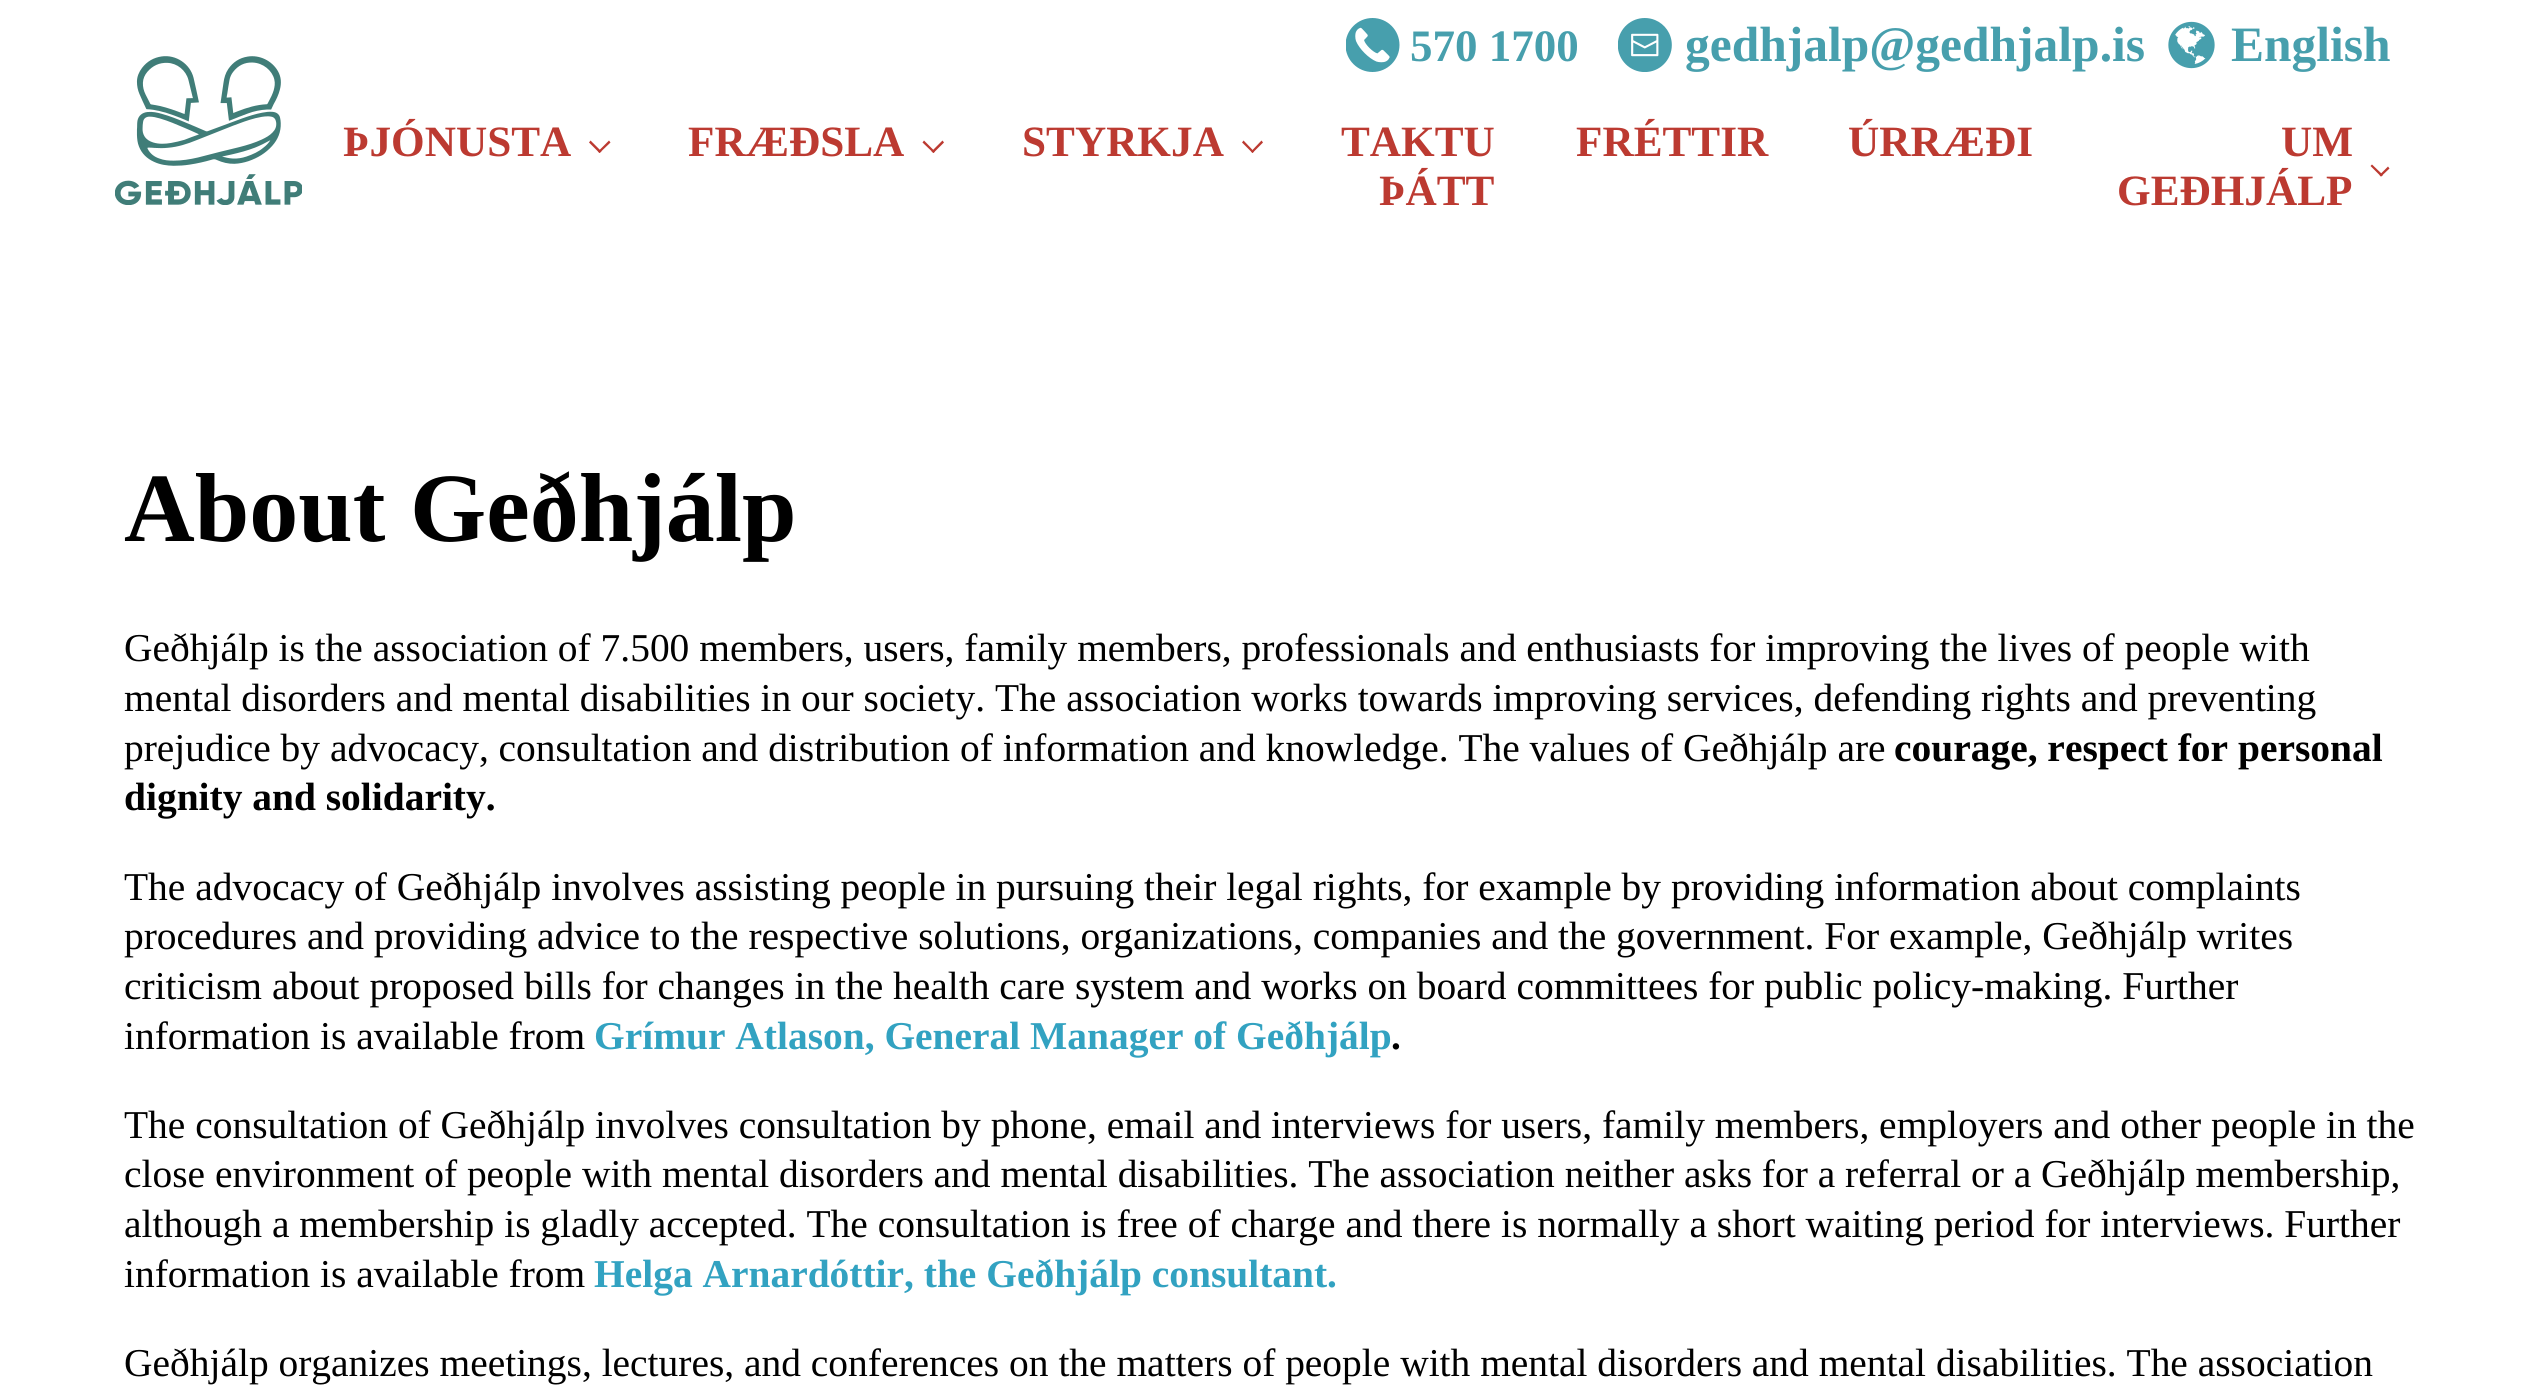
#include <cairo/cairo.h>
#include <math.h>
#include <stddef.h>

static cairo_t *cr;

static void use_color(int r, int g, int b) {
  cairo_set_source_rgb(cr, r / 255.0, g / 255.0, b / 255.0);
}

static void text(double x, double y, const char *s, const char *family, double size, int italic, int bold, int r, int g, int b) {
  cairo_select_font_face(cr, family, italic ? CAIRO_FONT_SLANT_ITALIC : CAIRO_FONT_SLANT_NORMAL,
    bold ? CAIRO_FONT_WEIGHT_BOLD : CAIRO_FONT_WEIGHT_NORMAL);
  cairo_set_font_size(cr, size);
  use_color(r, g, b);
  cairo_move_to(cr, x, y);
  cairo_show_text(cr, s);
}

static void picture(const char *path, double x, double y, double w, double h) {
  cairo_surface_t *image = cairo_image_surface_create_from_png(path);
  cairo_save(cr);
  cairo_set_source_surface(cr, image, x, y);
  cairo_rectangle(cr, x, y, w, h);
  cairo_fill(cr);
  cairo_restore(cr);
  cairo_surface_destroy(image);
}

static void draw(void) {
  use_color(255, 255, 255);
  cairo_paint(cr);
  picture("img_01.png", 115, 56, 187, 149);
  picture("img_02.png", 1346, 18, 54, 54);
  picture("img_03.png", 1618, 18, 54, 54);
  picture("img_04.png", 2168, 21, 47, 48);
  use_color(188, 58, 49);
  cairo_new_path(cr);
  cairo_move_to(cr, 610.5, 142.5);
  cairo_line_to(cr, 599.5, 153);
  cairo_line_to(cr, 598, 151.5);
  cairo_line_to(cr, 609, 140.5);
  cairo_close_path(cr);
  cairo_fill(cr);
  cairo_new_path(cr);
  cairo_move_to(cr, 601.5, 151.5);
  cairo_line_to(cr, 599.5, 153);
  cairo_line_to(cr, 589, 142.5);
  cairo_line_to(cr, 590.5, 140.5);
  cairo_close_path(cr);
  cairo_fill(cr);
  cairo_new_path(cr);
  cairo_move_to(cr, 944, 142.5);
  cairo_line_to(cr, 933.5, 153);
  cairo_line_to(cr, 931.5, 151.5);
  cairo_line_to(cr, 942.5, 140.5);
  cairo_close_path(cr);
  cairo_fill(cr);
  cairo_new_path(cr);
  cairo_move_to(cr, 935, 151.5);
  cairo_line_to(cr, 933.5, 153);
  cairo_line_to(cr, 922.5, 142.5);
  cairo_line_to(cr, 924, 140.5);
  cairo_close_path(cr);
  cairo_fill(cr);
  cairo_new_path(cr);
  cairo_move_to(cr, 1263, 142.5);
  cairo_line_to(cr, 1252.5, 153);
  cairo_line_to(cr, 1251, 151.5);
  cairo_line_to(cr, 1261.5, 140.5);
  cairo_close_path(cr);
  cairo_fill(cr);
  cairo_new_path(cr);
  cairo_move_to(cr, 1254, 151.5);
  cairo_line_to(cr, 1252.5, 153);
  cairo_line_to(cr, 1242, 142.5);
  cairo_line_to(cr, 1243.5, 140.5);
  cairo_close_path(cr);
  cairo_fill(cr);
  cairo_new_path(cr);
  cairo_move_to(cr, 2389.5, 168.5);
  cairo_line_to(cr, 2381, 176.5);
  cairo_line_to(cr, 2379.5, 175);
  cairo_line_to(cr, 2388, 166.5);
  cairo_close_path(cr);
  cairo_fill(cr);
  cairo_new_path(cr);
  cairo_move_to(cr, 2383, 175);
  cairo_line_to(cr, 2381, 176.5);
  cairo_line_to(cr, 2370.5, 166);
  cairo_line_to(cr, 2372, 164.5);
  cairo_close_path(cr);
  cairo_fill(cr);
  text(1410, 61, "570 1700", "Liberation Serif", 45, 0, 1, 71, 159, 173);
  text(1685, 61, "gedhjalp@gedhjalp.is", "Liberation Serif", 49.5, 0, 1, 71, 159, 173);
  text(2231, 61, "English", "Liberation Serif", 49.5, 0, 1, 71, 159, 173);
  text(343, 156, "ÞJÓNUSTA", "Liberation Serif", 43.25, 0, 1, 188, 58, 49);
  text(688, 156, "FRÆÐSLA", "Liberation Serif", 43.25, 0, 1, 188, 58, 49);
  text(1022, 156, "STYRKJA", "Liberation Serif", 43.25, 0, 1, 188, 58, 49);
  text(1341, 156, "TAKTU", "Liberation Serif", 43.25, 0, 1, 188, 58, 49);
  text(1379, 205, "ÞÁTT", "Liberation Serif", 43.25, 0, 1, 188, 58, 49);
  text(1576, 156, "FRÉTTIR", "Liberation Serif", 43.25, 0, 1, 188, 58, 49);
  text(1848, 156, "ÚRRÆÐI", "Liberation Serif", 43.25, 0, 1, 188, 58, 49);
  text(2281, 156, "UM", "Liberation Serif", 43.25, 0, 1, 188, 58, 49);
  text(2117, 205, "GEÐHJÁLP", "Liberation Serif", 43.25, 0, 1, 188, 58, 49);
  text(124, 541, "About Geðhjálp", "Liberation Serif", 98, 0, 1, 0, 0, 0);
  text(124, 661, "Geðhjálp is the association of 7.500 members, users, family members, professionals and enthusiasts for improving the lives of people with", "Liberation Serif", 39.45, 0, 0, 0, 0, 0);
  text(124, 711, "mental disorders and mental disabilities in our society. The association works towards improving services, defending rights and preventing", "Liberation Serif", 39.45, 0, 0, 0, 0, 0);
  text(124, 761, "prejudice by advocacy, consultation and distribution of information and knowledge. The values of Geðhjálp are", "Liberation Serif", 39.45, 0, 0, 0, 0, 0);
  text(1894, 761, "courage, respect for personal", "Liberation Serif", 39.45, 0, 1, 0, 0, 0);
  text(124, 810, "dignity and solidarity.", "Liberation Serif", 39.45, 0, 1, 0, 0, 0);
  text(124, 900, "The advocacy of Geðhjálp involves assisting people in pursuing their legal rights, for example by providing information about complaints", "Liberation Serif", 39.45, 0, 0, 0, 0, 0);
  text(124, 949, "procedures and providing advice to the respective solutions, organizations, companies and the government. For example, Geðhjálp writes", "Liberation Serif", 39.45, 0, 0, 0, 0, 0);
  text(124, 999, "criticism about proposed bills for changes in the health care system and works on board committees for public policy-making. Further", "Liberation Serif", 39.45, 0, 0, 0, 0, 0);
  text(124, 1049, "information is available from", "Liberation Serif", 39.45, 0, 0, 0, 0, 0);
  text(594, 1049, "Grímur Atlason, General Manager of Geðhjálp", "Liberation Serif", 39.45, 0, 1, 50, 162, 193);
  text(1391, 1049, ".", "Liberation Serif", 39.45, 0, 1, 0, 0, 0);
  text(124, 1138, "The consultation of Geðhjálp involves consultation by phone, email and interviews for users, family members, employers and other people in the", "Liberation Serif", 39.45, 0, 0, 0, 0, 0);
  text(124, 1187, "close environment of people with mental disorders and mental disabilities. The association neither asks for a referral or a Geðhjálp membership,", "Liberation Serif", 39.45, 0, 0, 0, 0, 0);
  text(124, 1237, "although a membership is gladly accepted. The consultation is free of charge and there is normally a short waiting period for interviews. Further", "Liberation Serif", 39.45, 0, 0, 0, 0, 0);
  text(124, 1287, "information is available from", "Liberation Serif", 39.45, 0, 0, 0, 0, 0);
  text(594, 1287, "Helga Arnardóttir, the Geðhjálp consultant.", "Liberation Serif", 39.45, 0, 1, 50, 162, 193);
  text(124, 1376, "Geðhjálp organizes meetings, lectures, and conferences on the matters of people with mental disorders and mental disabilities. The association", "Liberation Serif", 39.45, 0, 0, 0, 0, 0);
}

int main(void) {
  cairo_surface_t *surface = cairo_image_surface_create(CAIRO_FORMAT_RGB24, 2540, 1386);
  cr = cairo_create(surface);
  cairo_font_options_t *options = cairo_font_options_create();
  cairo_font_options_set_hint_metrics(options, CAIRO_HINT_METRICS_OFF);
  cairo_font_options_set_hint_style(options, CAIRO_HINT_STYLE_NONE);
  cairo_set_font_options(cr, options);
  cairo_set_miter_limit(cr, 4);
  draw();
  cairo_surface_write_to_png(surface, "out.png");
  cairo_font_options_destroy(options);
  cairo_destroy(cr);
  cairo_surface_destroy(surface);
  return 0;
}
